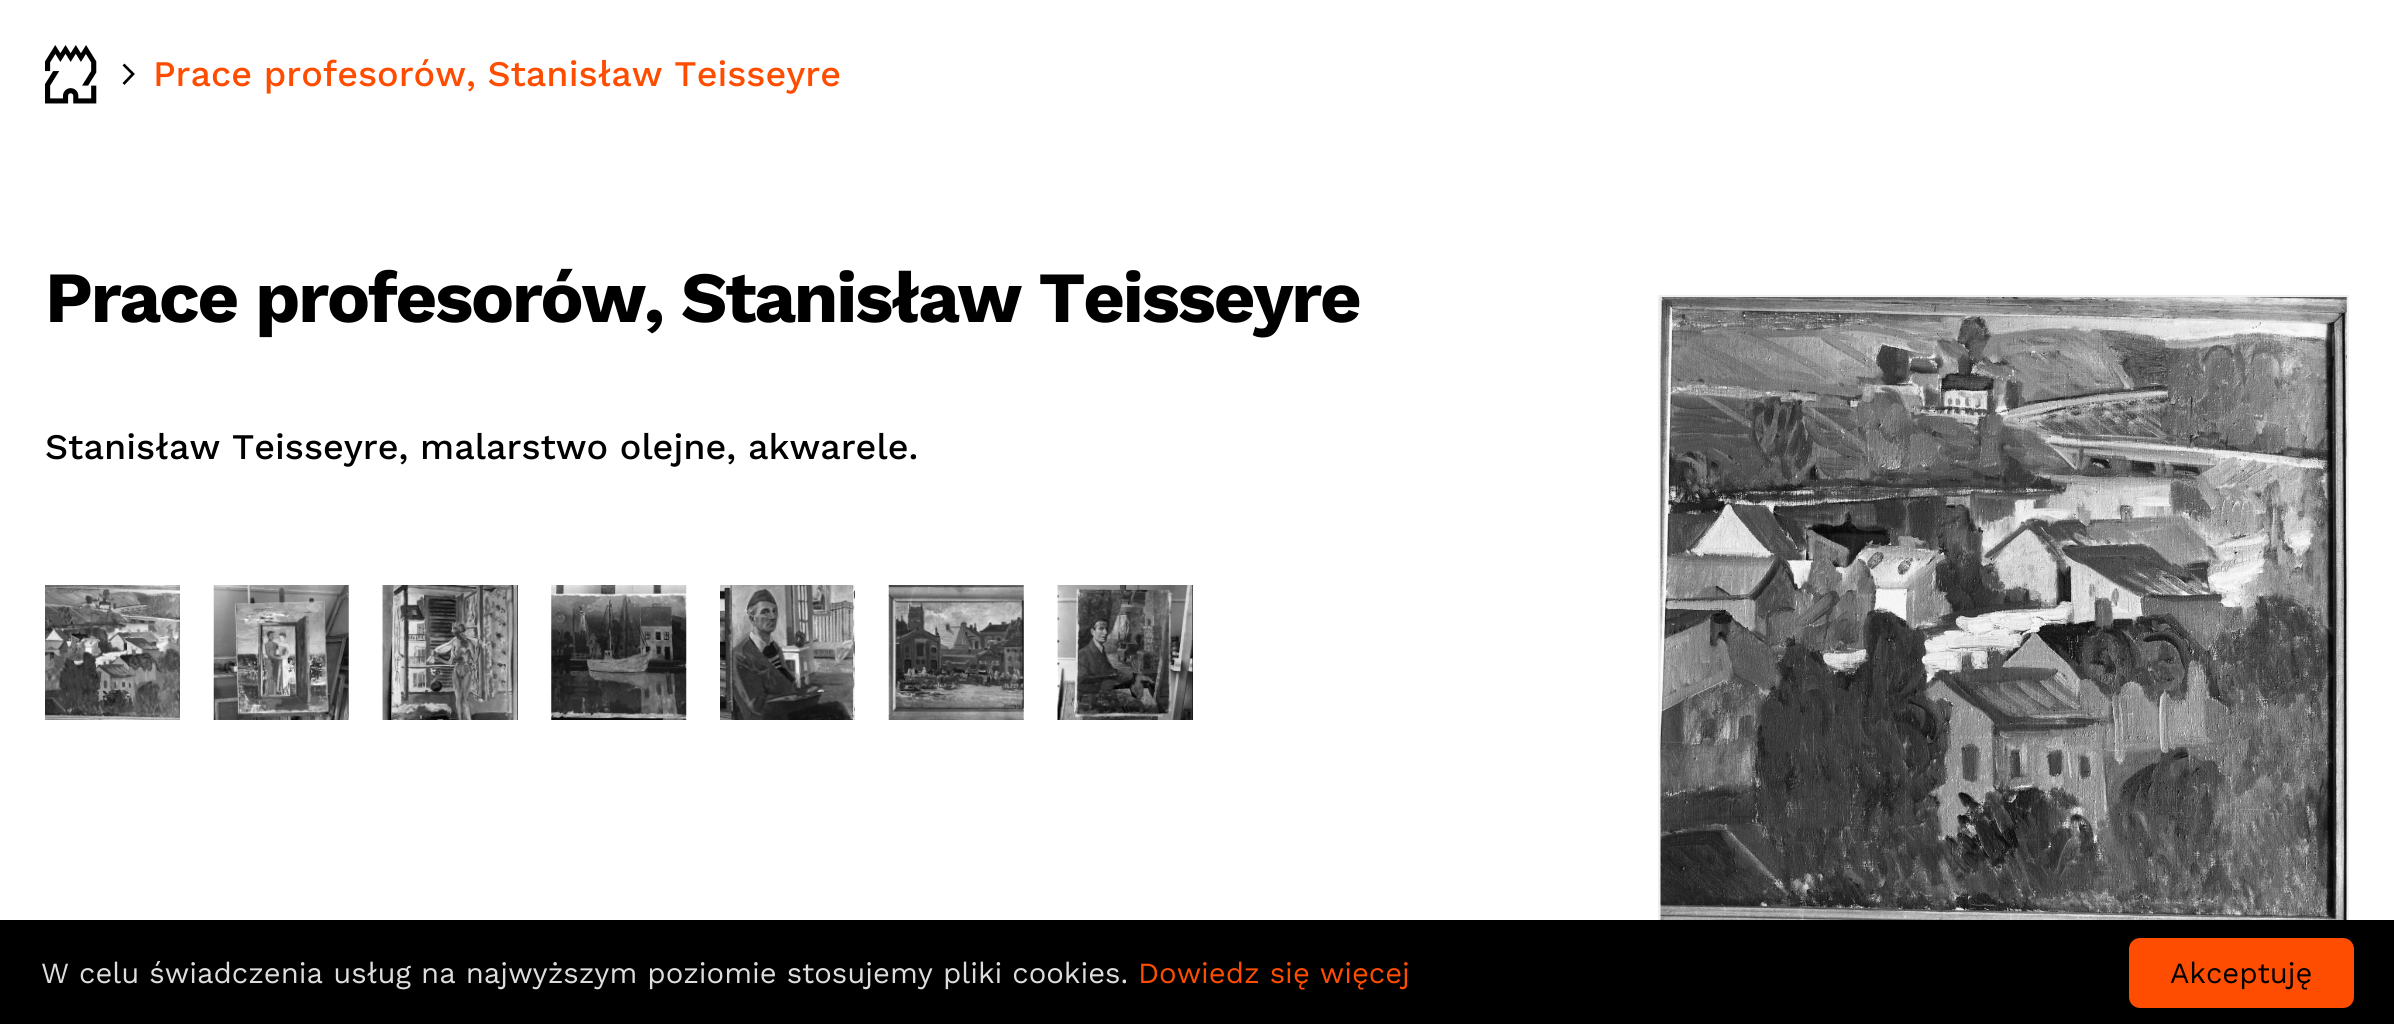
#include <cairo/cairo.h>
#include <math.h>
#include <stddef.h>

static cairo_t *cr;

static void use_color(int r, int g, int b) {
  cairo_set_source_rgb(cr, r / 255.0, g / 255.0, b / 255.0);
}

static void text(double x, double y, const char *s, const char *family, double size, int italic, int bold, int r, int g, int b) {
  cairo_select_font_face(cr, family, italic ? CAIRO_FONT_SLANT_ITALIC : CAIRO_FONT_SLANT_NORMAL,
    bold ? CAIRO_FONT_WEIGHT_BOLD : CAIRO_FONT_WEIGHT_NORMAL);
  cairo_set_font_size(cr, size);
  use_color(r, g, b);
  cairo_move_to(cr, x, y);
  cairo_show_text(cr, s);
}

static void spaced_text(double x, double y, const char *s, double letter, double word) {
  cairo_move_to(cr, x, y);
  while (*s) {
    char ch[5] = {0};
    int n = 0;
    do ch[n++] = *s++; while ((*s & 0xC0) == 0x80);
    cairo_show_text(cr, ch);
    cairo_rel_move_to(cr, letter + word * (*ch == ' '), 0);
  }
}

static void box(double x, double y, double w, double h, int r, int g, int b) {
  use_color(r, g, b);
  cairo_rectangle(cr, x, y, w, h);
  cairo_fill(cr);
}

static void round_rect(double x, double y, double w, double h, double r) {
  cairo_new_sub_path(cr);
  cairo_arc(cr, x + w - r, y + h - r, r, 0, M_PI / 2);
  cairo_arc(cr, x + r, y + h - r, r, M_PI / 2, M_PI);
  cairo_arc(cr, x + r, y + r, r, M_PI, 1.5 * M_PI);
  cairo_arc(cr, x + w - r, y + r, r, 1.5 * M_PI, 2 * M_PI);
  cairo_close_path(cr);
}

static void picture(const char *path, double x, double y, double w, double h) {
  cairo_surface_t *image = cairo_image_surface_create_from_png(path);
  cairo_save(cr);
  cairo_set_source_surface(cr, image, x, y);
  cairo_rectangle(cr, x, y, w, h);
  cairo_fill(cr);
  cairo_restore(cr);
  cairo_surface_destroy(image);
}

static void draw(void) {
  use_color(255, 255, 255);
  cairo_paint(cr);
  picture("img_01.png", 45, 45, 52, 59);
  cairo_new_path(cr);
  cairo_move_to(cr, 123.5, 64.5);
  cairo_line_to(cr, 133, 74);
  cairo_line_to(cr, 123.5, 84);
  use_color(0, 0, 0);
  cairo_set_line_width(cr, 2.7);
  cairo_stroke(cr);
  picture("img_02.png", 45, 585, 135, 135);
  picture("img_03.png", 213, 585, 136, 135);
  box(383, 585, 135, 135, 0, 0, 0);
  picture("img_04.png", 382, 585, 136, 135);
  picture("img_05.png", 551, 585, 136, 135);
  picture("img_06.png", 720, 585, 135, 135);
  picture("img_07.png", 888, 585, 136, 135);
  box(1058, 585, 135, 135, 0, 0, 0);
  picture("img_08.png", 1057, 585, 136, 135);
  box(1658, 295, 691, 625, 239, 239, 239);
  picture("img_09.png", 1660, 297, 687, 623);
  box(0, 920, 2394, 104, 0, 0, 0);
  use_color(254, 77, 0);
  round_rect(2129, 938, 225, 70, 11);
  cairo_fill(cr);
  text(153, 86, "Prace profesorów, Stanisław Teisseyre", "Work Sans Medium", 36, 0, 0, 254, 77, 0);
  cairo_select_font_face(cr, "Work Sans", CAIRO_FONT_SLANT_NORMAL, CAIRO_FONT_WEIGHT_BOLD);
  cairo_set_font_size(cr, 72);
  use_color(0, 0, 0);
  spaced_text(45, 322, "Prace profesorów, Stanisław Teisseyre", -2.25, 0);
  text(45, 459, "Stanisław Teisseyre, malarstwo olejne, akwarele.", "Work Sans Medium", 36, 0, 0, 0, 0, 0);
  text(41, 983, "W celu świadczenia usług na najwyższym poziomie stosujemy pliki cookies.", "Work Sans", 29.25, 0, 0, 221, 221, 221);
  text(1138, 983, "Dowiedz się więcej", "Work Sans", 29.25, 0, 0, 254, 77, 0);
  text(2170, 983, "Akceptuję", "Work Sans", 29.25, 0, 0, 0, 0, 0);
}

int main(void) {
  cairo_surface_t *surface = cairo_image_surface_create(CAIRO_FORMAT_RGB24, 2394, 1024);
  cr = cairo_create(surface);
  cairo_font_options_t *options = cairo_font_options_create();
  cairo_font_options_set_hint_metrics(options, CAIRO_HINT_METRICS_OFF);
  cairo_font_options_set_hint_style(options, CAIRO_HINT_STYLE_NONE);
  cairo_set_font_options(cr, options);
  cairo_set_miter_limit(cr, 4);
  draw();
  cairo_surface_write_to_png(surface, "out.png");
  cairo_font_options_destroy(options);
  cairo_destroy(cr);
  cairo_surface_destroy(surface);
  return 0;
}
